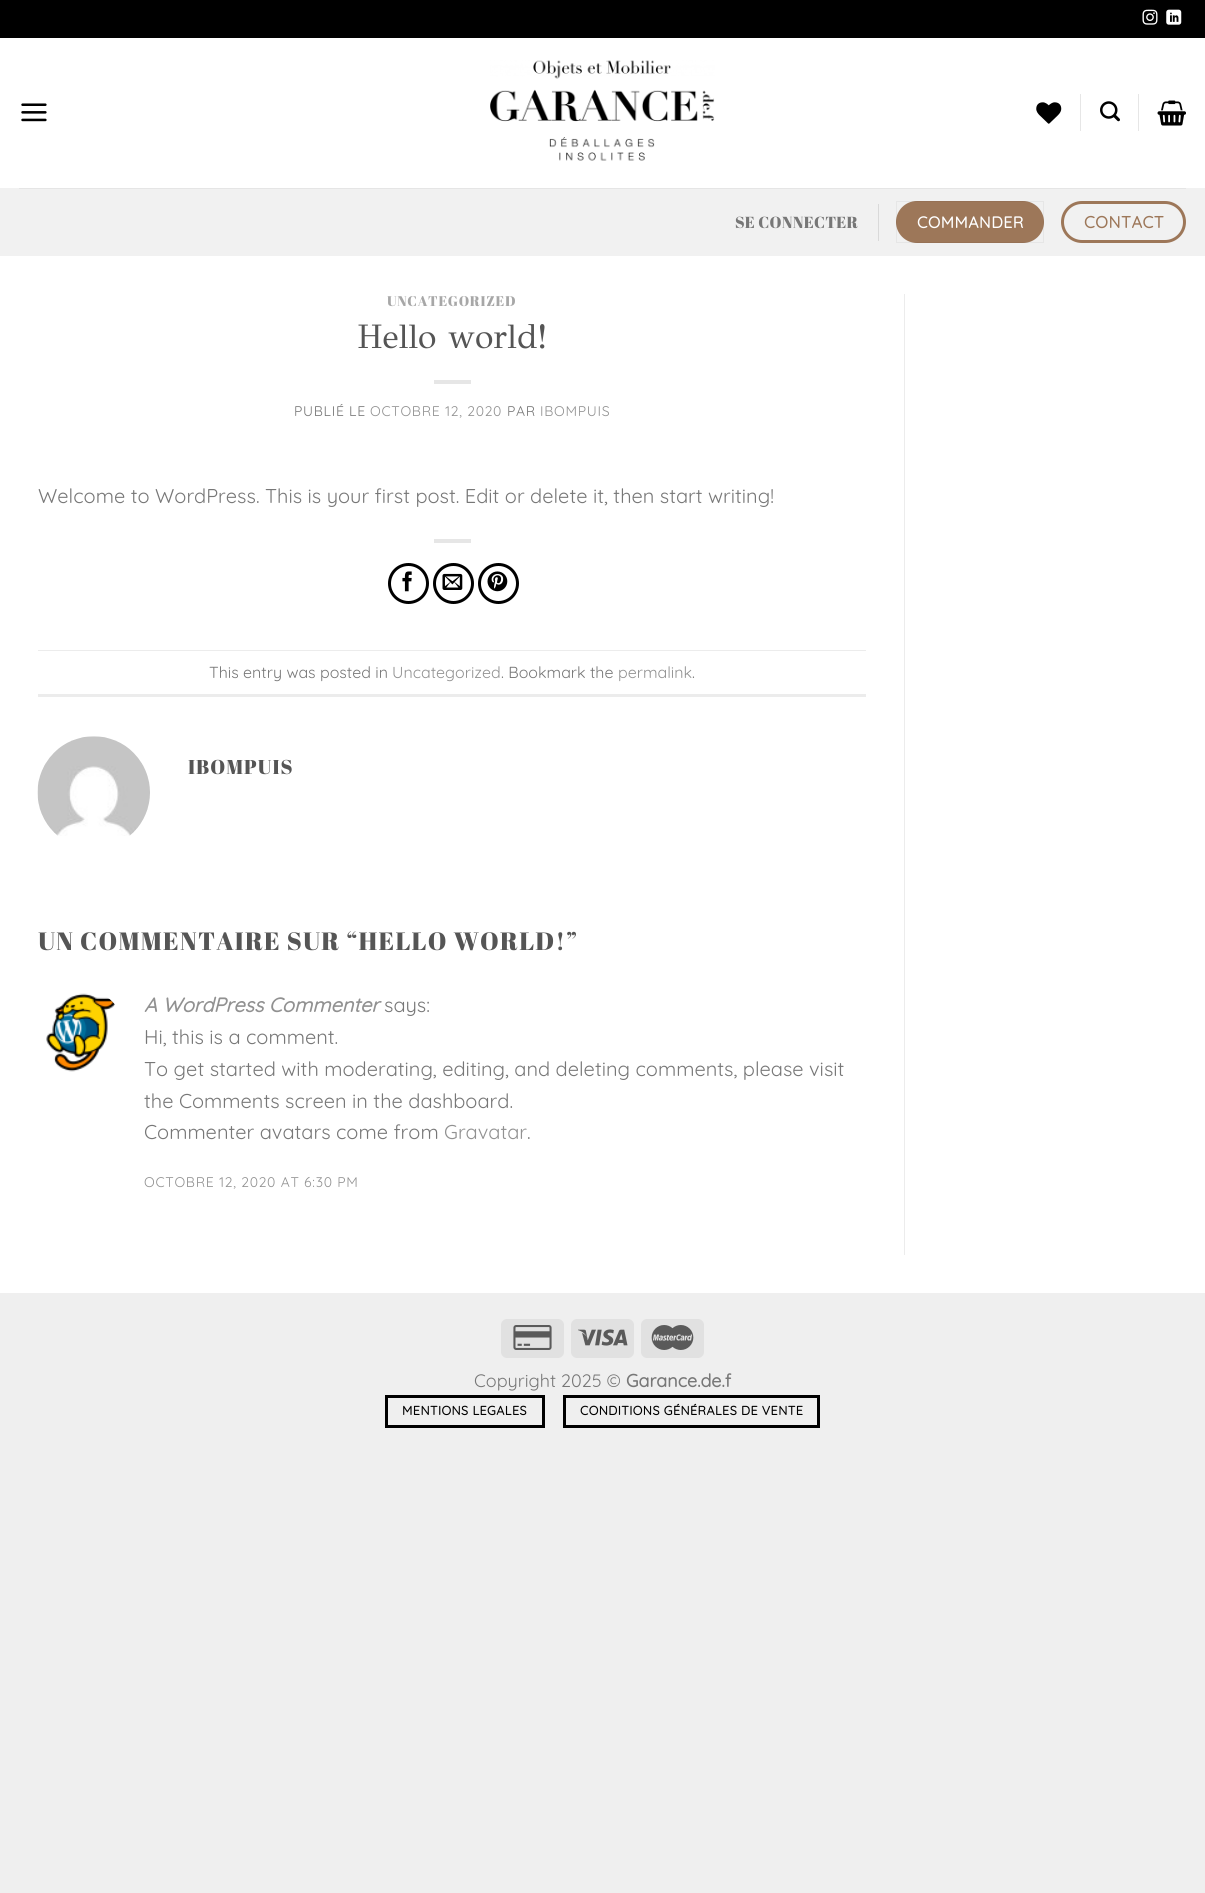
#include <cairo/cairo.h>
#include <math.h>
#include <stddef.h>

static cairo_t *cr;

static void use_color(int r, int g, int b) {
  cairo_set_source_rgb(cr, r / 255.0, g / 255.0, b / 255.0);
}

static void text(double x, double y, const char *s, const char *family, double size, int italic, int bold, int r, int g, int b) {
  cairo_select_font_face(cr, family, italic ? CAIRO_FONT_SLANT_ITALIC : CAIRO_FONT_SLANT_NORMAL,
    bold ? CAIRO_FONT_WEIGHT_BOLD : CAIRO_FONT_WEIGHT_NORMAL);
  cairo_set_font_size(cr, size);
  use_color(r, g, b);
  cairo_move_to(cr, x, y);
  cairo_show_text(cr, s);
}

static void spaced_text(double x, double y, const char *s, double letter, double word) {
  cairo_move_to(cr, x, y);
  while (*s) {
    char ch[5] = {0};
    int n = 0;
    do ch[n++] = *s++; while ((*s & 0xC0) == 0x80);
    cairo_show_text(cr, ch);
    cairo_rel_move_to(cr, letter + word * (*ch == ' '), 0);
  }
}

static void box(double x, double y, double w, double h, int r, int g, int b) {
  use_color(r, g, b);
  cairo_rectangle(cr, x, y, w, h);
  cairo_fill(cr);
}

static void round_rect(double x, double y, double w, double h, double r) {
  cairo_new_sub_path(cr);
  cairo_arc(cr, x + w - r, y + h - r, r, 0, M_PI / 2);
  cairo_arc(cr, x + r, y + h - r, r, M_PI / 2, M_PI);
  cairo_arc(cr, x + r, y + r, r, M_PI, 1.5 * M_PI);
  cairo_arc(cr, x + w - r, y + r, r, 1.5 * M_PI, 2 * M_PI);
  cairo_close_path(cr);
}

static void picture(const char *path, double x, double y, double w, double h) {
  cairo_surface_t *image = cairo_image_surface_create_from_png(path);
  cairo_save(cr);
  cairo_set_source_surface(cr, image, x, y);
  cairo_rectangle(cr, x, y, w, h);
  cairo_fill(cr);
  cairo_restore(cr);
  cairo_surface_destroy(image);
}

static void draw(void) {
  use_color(239, 239, 239);
  cairo_paint(cr);
  box(0, 38, 1205, 1255, 255, 255, 255);
  box(0, 0, 1205, 38, 0, 0, 0);
  picture("img_01.png", 1142, 9, 16, 16);
  picture("img_02.png", 1166, 9, 16, 16);
  picture("img_03.png", 21, 103, 26, 19);
  picture("img_04.png", 490, 60, 225, 101);
  picture("img_05.png", 1036, 102, 26, 22);
  box(1080, 94, 1, 37, 230, 230, 230);
  picture("img_06.png", 1100, 101, 20, 21);
  box(1138, 94, 1, 37, 230, 230, 230);
  picture("img_07.png", 1157, 100, 29, 26);
  box(0, 188, 1205, 68, 241, 241, 241);
  box(19, 188, 1167, 1, 229, 229, 229);
  box(878, 204, 1, 37, 217, 217, 217);
  use_color(157, 119, 89);
  round_rect(896, 201, 148, 42, 21);
  cairo_fill(cr);
  cairo_rectangle(cr, 896.5, 201.5, 147, 41);
  cairo_set_source_rgba(cr, 0, 0, 0, 0.05);
  cairo_set_line_width(cr, 1);
  cairo_stroke(cr);
  round_rect(1062.5, 202.5, 122, 39, 19.5);
  use_color(157, 119, 89);
  cairo_set_line_width(cr, 3);
  cairo_stroke(cr);
  box(434, 380, 37, 4, 230, 230, 230);
  box(434, 539, 37, 4, 230, 230, 230);
  cairo_arc(cr, 408.5, 583.5, 19, 0, 2 * M_PI);
  use_color(0, 0, 0);
  cairo_stroke(cr);
  picture("img_08.png", 402, 571, 10, 21);
  cairo_arc(cr, 453.5, 583.5, 19, 0, 2 * M_PI);
  cairo_stroke(cr);
  picture("img_09.png", 442, 573, 21, 17);
  cairo_arc(cr, 498.5, 583.5, 19, 0, 2 * M_PI);
  cairo_stroke(cr);
  picture("img_10.png", 487, 571, 21, 21);
  box(38, 650, 828, 1, 236, 236, 236);
  box(38, 694, 828, 3, 236, 236, 236);
  picture("img_11.png", 37, 736, 113, 100);
  picture("img_12.png", 46, 993, 69, 79);
  box(904, 294, 1, 961, 236, 236, 236);
  use_color(225, 225, 225);
  round_rect(501, 1319, 63, 39, 6);
  cairo_fill(cr);
  picture("img_13.png", 513, 1325, 39, 25);
  round_rect(571, 1319, 63, 39, 6);
  cairo_fill(cr);
  picture("img_14.png", 578, 1329, 50, 17);
  round_rect(641, 1319, 63, 39, 6);
  cairo_fill(cr);
  picture("img_15.png", 651, 1325, 43, 25);
  cairo_rectangle(cr, 386.5, 1396.5, 157, 30);
  use_color(0, 0, 0);
  cairo_stroke(cr);
  cairo_rectangle(cr, 564.5, 1396.5, 254, 30);
  cairo_stroke(cr);
  cairo_select_font_face(cr, "Abril Fatface", CAIRO_FONT_SLANT_NORMAL, CAIRO_FONT_WEIGHT_NORMAL);
  cairo_set_font_size(cr, 16);
  use_color(119, 119, 119);
  spaced_text(735, 228, "SE CONNECTER", 0.25, 0);
  cairo_select_font_face(cr, "Quicksand", CAIRO_FONT_SLANT_NORMAL, CAIRO_FONT_WEIGHT_BOLD);
  use_color(255, 255, 255);
  spaced_text(917, 228, "COMMANDER", 0.5, 0);
  cairo_set_font_size(cr, 16.5);
  use_color(157, 119, 89);
  spaced_text(1084, 228, "CONTACT", 0.5, 0);
  cairo_select_font_face(cr, "Abril Fatface", CAIRO_FONT_SLANT_NORMAL, CAIRO_FONT_WEIGHT_NORMAL);
  cairo_set_font_size(cr, 14);
  use_color(167, 167, 167);
  spaced_text(387, 306, "UNCATEGORIZED", 0.7, 0);
  text(357, 348, "Hello world!", "GFS Didot", 34, 0, 0, 85, 85, 85);
  cairo_select_font_face(cr, "Quicksand", CAIRO_FONT_SLANT_NORMAL, CAIRO_FONT_WEIGHT_NORMAL);
  cairo_set_font_size(cr, 14);
  use_color(119, 119, 119);
  spaced_text(294, 416, "PUBLIÉ LE", 0.7, 0);
  use_color(145, 145, 145);
  spaced_text(370, 416, "OCTOBRE 12, 2020", 0.7, 0);
  use_color(119, 119, 119);
  spaced_text(507, 416, "PAR", 0.7, 0);
  use_color(145, 145, 145);
  spaced_text(540, 416, "IBOMPUIS", 0.7, 0);
  text(38, 503, "Welcome to WordPress. This is your first post. Edit or delete it, then start writing!", "Quicksand", 20, 0, 0, 119, 119, 119);
  text(209, 678, "This entry was posted in", "Quicksand", 16, 0, 0, 119, 119, 119);
  text(392, 678, "Uncategorized", "Quicksand", 16, 0, 0, 145, 145, 145);
  text(501, 678, ". Bookmark the", "Quicksand", 16, 0, 0, 119, 119, 119);
  text(618, 678, "permalink", "Quicksand", 16, 0, 0, 145, 145, 145);
  text(692, 678, ".", "Quicksand", 16, 0, 0, 119, 119, 119);
  cairo_select_font_face(cr, "Abril Fatface", CAIRO_FONT_SLANT_NORMAL, CAIRO_FONT_WEIGHT_NORMAL);
  cairo_set_font_size(cr, 20);
  use_color(85, 85, 85);
  spaced_text(188, 774, "IBOMPUIS", 1, 0);
  cairo_set_font_size(cr, 25);
  spaced_text(38, 950, "UN COMMENTAIRE SUR “HELLO WORLD!”", 1.25, 0);
  text(144, 1012, "A WordPress Commenter", "Quicksand", 20, 1, 1, 145, 145, 145);
  text(384, 1012, "says:", "Quicksand", 20, 0, 0, 119, 119, 119);
  text(144, 1044, "Hi, this is a comment.", "Quicksand", 20, 0, 0, 119, 119, 119);
  text(144, 1076, "To get started with moderating, editing, and deleting comments, please visit", "Quicksand", 20, 0, 0, 119, 119, 119);
  text(144, 1108, "the Comments screen in the dashboard.", "Quicksand", 20, 0, 0, 119, 119, 119);
  text(144, 1139, "Commenter avatars come from", "Quicksand", 20, 0, 0, 119, 119, 119);
  text(444, 1139, "Gravatar", "Quicksand", 20, 0, 0, 145, 145, 145);
  text(527, 1139, ".", "Quicksand", 20, 0, 0, 119, 119, 119);
  cairo_set_font_size(cr, 14);
  use_color(145, 145, 145);
  spaced_text(144, 1187, "OCTOBRE 12, 2020 AT 6:30 PM", 0.7, 0);
  text(474, 1387, "Copyright 2025 ©", "Quicksand", 18, 0, 0, 119, 119, 119);
  text(626, 1387, "Garance.de.f", "Quicksand", 18, 0, 1, 119, 119, 119);
  cairo_set_font_size(cr, 12.6);
  use_color(0, 0, 0);
  spaced_text(402, 1415, "MENTIONS LEGALES", 0.4, 0);
  spaced_text(580, 1415, "CONDITIONS GÉNÉRALES DE VENTE", 0.4, 0);
}

int main(void) {
  cairo_surface_t *surface = cairo_image_surface_create(CAIRO_FORMAT_RGB24, 1205, 1893);
  cr = cairo_create(surface);
  cairo_font_options_t *options = cairo_font_options_create();
  cairo_font_options_set_hint_metrics(options, CAIRO_HINT_METRICS_OFF);
  cairo_font_options_set_hint_style(options, CAIRO_HINT_STYLE_NONE);
  cairo_set_font_options(cr, options);
  cairo_set_miter_limit(cr, 4);
  draw();
  cairo_surface_write_to_png(surface, "out.png");
  cairo_font_options_destroy(options);
  cairo_destroy(cr);
  cairo_surface_destroy(surface);
  return 0;
}
